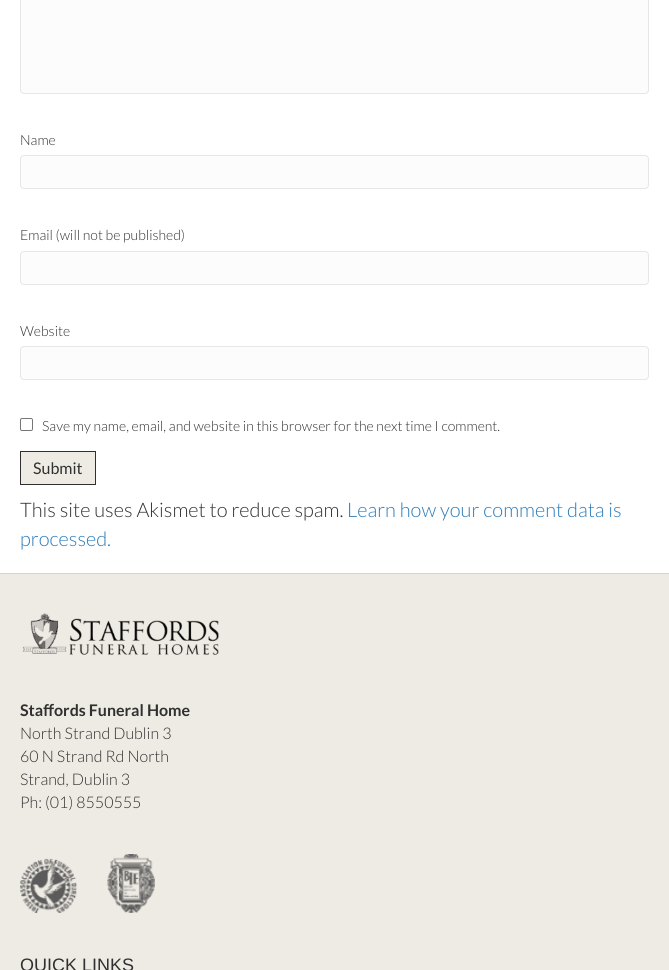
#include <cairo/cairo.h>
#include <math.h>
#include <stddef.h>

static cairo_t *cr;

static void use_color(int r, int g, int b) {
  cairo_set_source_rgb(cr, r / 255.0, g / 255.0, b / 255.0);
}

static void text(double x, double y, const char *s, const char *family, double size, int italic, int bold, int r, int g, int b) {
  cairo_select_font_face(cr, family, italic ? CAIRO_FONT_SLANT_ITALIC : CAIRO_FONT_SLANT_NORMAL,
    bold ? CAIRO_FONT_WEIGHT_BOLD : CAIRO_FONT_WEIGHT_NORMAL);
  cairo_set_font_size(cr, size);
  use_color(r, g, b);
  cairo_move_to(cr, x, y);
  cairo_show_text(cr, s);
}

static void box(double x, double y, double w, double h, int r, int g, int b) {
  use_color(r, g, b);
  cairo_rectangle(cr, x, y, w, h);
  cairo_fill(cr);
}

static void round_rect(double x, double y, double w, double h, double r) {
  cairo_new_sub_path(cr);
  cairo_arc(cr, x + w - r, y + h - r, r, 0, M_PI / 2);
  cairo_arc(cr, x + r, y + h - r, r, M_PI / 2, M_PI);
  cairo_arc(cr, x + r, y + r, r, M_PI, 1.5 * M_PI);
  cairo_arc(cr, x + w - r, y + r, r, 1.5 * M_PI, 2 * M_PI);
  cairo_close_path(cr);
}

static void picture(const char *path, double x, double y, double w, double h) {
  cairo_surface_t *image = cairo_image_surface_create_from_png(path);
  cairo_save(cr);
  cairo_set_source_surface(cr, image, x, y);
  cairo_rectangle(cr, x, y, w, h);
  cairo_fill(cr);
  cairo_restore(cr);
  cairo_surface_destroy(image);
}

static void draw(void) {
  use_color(255, 255, 255);
  cairo_paint(cr);
  use_color(252, 252, 252);
  round_rect(20.5, -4.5, 628, 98, 3.5);
  cairo_fill_preserve(cr);
  use_color(230, 230, 230);
  cairo_set_line_width(cr, 1);
  cairo_stroke(cr);
  use_color(252, 252, 252);
  round_rect(20.5, 155.5, 628, 33, 3.5);
  cairo_fill_preserve(cr);
  use_color(230, 230, 230);
  cairo_stroke(cr);
  use_color(252, 252, 252);
  round_rect(20.5, 251.5, 628, 33, 3.5);
  cairo_fill_preserve(cr);
  use_color(230, 230, 230);
  cairo_stroke(cr);
  use_color(252, 252, 252);
  round_rect(20.5, 346.5, 628, 33, 3.5);
  cairo_fill_preserve(cr);
  use_color(230, 230, 230);
  cairo_stroke(cr);
  round_rect(20.5, 418.5, 12, 12, 1.5);
  use_color(118, 118, 118);
  cairo_stroke(cr);
  use_color(238, 235, 228);
  cairo_rectangle(cr, 20.5, 451.5, 75, 33);
  cairo_fill_preserve(cr);
  use_color(48, 48, 48);
  cairo_stroke(cr);
  box(0, 574, 669, 396, 238, 235, 228);
  box(0, 573, 669, 1, 218, 212, 197);
  picture("img_01.png", 22, 612, 197, 43);
  picture("img_02.png", 20, 854, 135, 59);
  text(20, 145, "Name", "Lato Light", 14, 0, 0, 48, 48, 48);
  text(20, 240, "Email (will not be published)", "Lato Light", 14, 0, 0, 48, 48, 48);
  text(20, 336, "Website", "Lato Light", 14, 0, 0, 48, 48, 48);
  text(42, 431, "Save my name, email, and website in this browser for the next time I comment.", "Lato Light", 14, 0, 0, 48, 48, 48);
  text(33, 474, "Submit", "Lato", 16, 0, 0, 48, 48, 48);
  text(20, 517, "This site uses Akismet to reduce spam.", "Lato Light", 20, 0, 0, 48, 48, 48);
  text(347, 517, "Learn how your comment data is", "Lato Light", 20, 0, 0, 43, 123, 185);
  text(20, 546, "processed.", "Lato Light", 20, 0, 0, 43, 123, 185);
  text(20, 716, "Sta", "Lato", 16, 0, 1, 48, 48, 48);
  text(43, 716, "ﬀ", "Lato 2", 16, 0, 1, 48, 48, 48);
  text(54, 716, "ords Funeral Home", "Lato", 16, 0, 1, 48, 48, 48);
  text(20, 739, "North Strand Dublin 3", "Lato Light", 16, 0, 0, 48, 48, 48);
  text(20, 762, "60 N Strand Rd North", "Lato Light", 16, 0, 0, 48, 48, 48);
  text(20, 785, "Strand, Dublin 3", "Lato Light", 16, 0, 0, 48, 48, 48);
  text(20, 808, "Ph: (01) 8550555", "Lato Light", 16, 0, 0, 48, 48, 48);
  text(20, 971, "QUICK LINKS", "Liberation Sans", 18, 0, 0, 48, 48, 48);
}

int main(void) {
  cairo_surface_t *surface = cairo_image_surface_create(CAIRO_FORMAT_RGB24, 669, 970);
  cr = cairo_create(surface);
  cairo_font_options_t *options = cairo_font_options_create();
  cairo_font_options_set_hint_metrics(options, CAIRO_HINT_METRICS_OFF);
  cairo_font_options_set_hint_style(options, CAIRO_HINT_STYLE_NONE);
  cairo_set_font_options(cr, options);
  cairo_set_miter_limit(cr, 4);
  draw();
  cairo_surface_write_to_png(surface, "out.png");
  cairo_font_options_destroy(options);
  cairo_destroy(cr);
  cairo_surface_destroy(surface);
  return 0;
}
